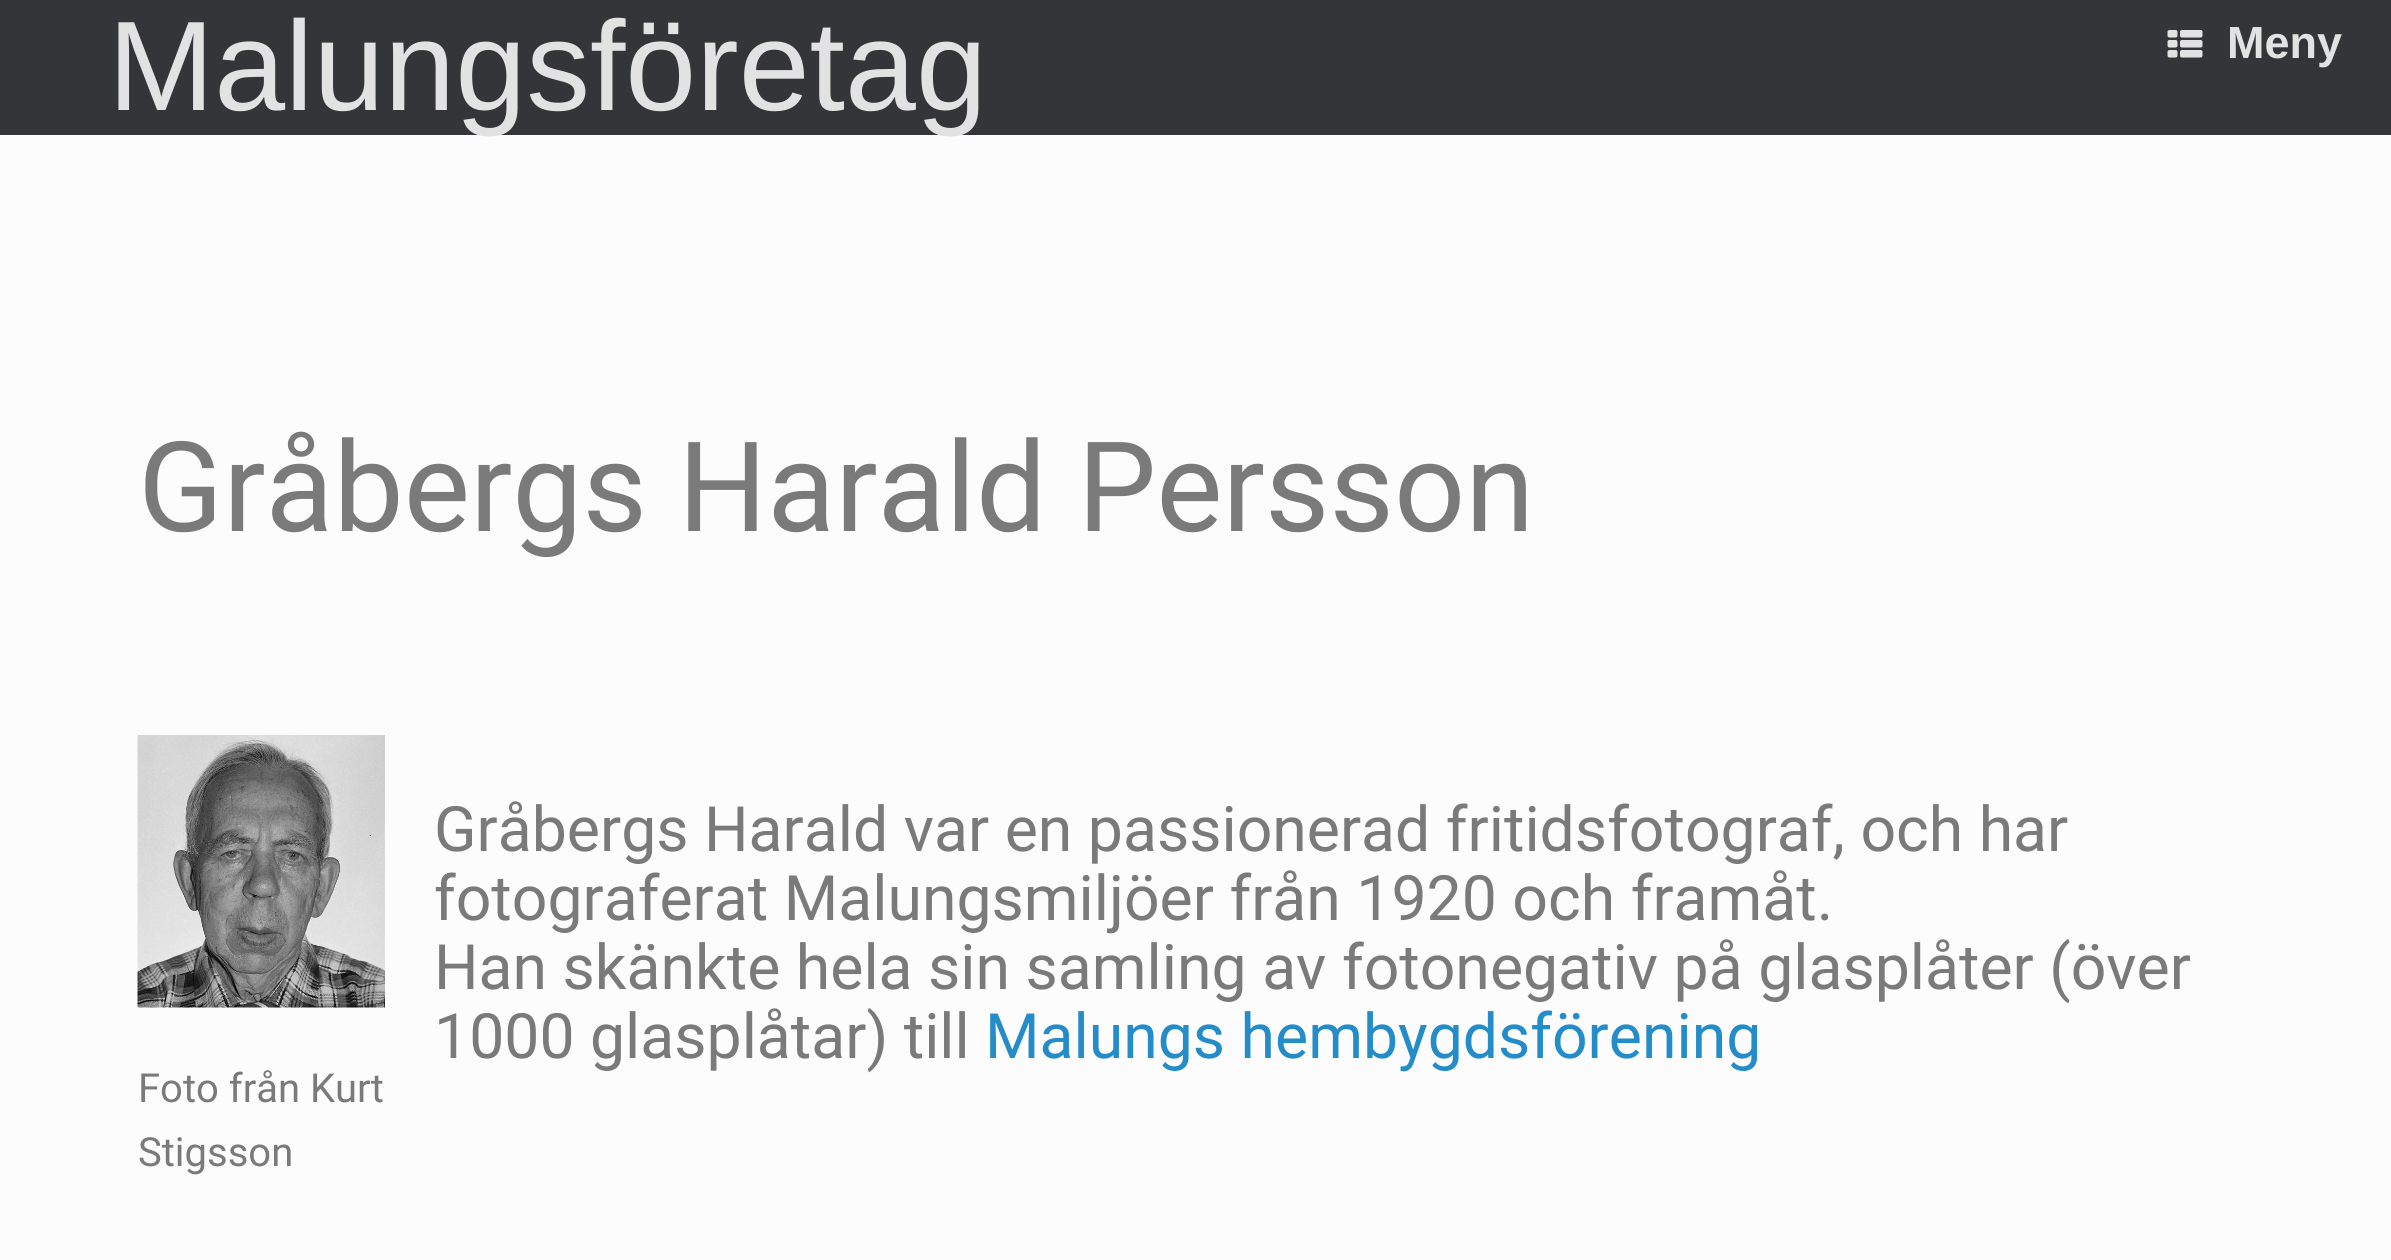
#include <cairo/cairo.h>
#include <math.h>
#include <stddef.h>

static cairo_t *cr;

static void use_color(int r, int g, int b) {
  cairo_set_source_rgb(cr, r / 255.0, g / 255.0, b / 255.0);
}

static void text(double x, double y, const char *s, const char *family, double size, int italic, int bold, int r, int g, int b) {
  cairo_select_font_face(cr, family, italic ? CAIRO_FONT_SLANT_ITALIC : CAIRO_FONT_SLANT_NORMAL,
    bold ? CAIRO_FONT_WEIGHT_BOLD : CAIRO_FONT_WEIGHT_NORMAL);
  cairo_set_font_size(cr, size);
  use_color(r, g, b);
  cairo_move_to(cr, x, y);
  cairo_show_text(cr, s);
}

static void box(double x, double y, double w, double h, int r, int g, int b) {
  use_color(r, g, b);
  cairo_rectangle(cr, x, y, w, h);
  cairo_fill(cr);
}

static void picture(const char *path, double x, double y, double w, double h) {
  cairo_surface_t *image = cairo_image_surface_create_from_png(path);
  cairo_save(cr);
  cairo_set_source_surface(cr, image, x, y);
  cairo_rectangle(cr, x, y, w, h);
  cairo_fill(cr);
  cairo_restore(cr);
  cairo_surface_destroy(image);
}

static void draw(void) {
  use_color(252, 252, 252);
  cairo_paint(cr);
  box(0, 0, 2391, 135, 52, 53, 56);
  picture("img_01.png", 2167, 30, 36, 28);
  picture("img_02.png", 137, 735, 248, 273);
  text(108, 110, "Malungsföretag", "Liberation Sans", 127.5, 0, 0, 226, 226, 226);
  text(2227, 58, "Meny", "Liberation Sans", 45, 0, 1, 226, 226, 226);
  text(138, 531, "Gråbergs Harald Persson", "Roboto", 125, 0, 0, 122, 122, 122);
  text(434, 851, "Gråbergs Harald var en passionerad fritidsfotograf, och har", "Roboto", 62.5, 0, 0, 122, 122, 122);
  text(434, 920, "fotograferat Malungsmiljöer från 1920 och framåt.", "Roboto", 62.5, 0, 0, 122, 122, 122);
  text(434, 989, "Han skänkte hela sin samling av fotonegativ på glasplåter (över", "Roboto", 62.5, 0, 0, 122, 122, 122);
  text(434, 1058, "1000 glasplåtar) till", "Roboto", 62.5, 0, 0, 122, 122, 122);
  text(985, 1058, "Malungs hembygdsförening", "Roboto", 62.5, 0, 0, 36, 140, 200);
  text(138, 1102, "Foto från Kurt", "Roboto", 40, 0, 0, 122, 122, 122);
  text(138, 1166, "Stigsson", "Roboto", 40, 0, 0, 122, 122, 122);
}

int main(void) {
  cairo_surface_t *surface = cairo_image_surface_create(CAIRO_FORMAT_RGB24, 2391, 1260);
  cr = cairo_create(surface);
  cairo_font_options_t *options = cairo_font_options_create();
  cairo_font_options_set_hint_metrics(options, CAIRO_HINT_METRICS_OFF);
  cairo_font_options_set_hint_style(options, CAIRO_HINT_STYLE_NONE);
  cairo_set_font_options(cr, options);
  cairo_set_miter_limit(cr, 4);
  draw();
  cairo_surface_write_to_png(surface, "out.png");
  cairo_font_options_destroy(options);
  cairo_destroy(cr);
  cairo_surface_destroy(surface);
  return 0;
}
